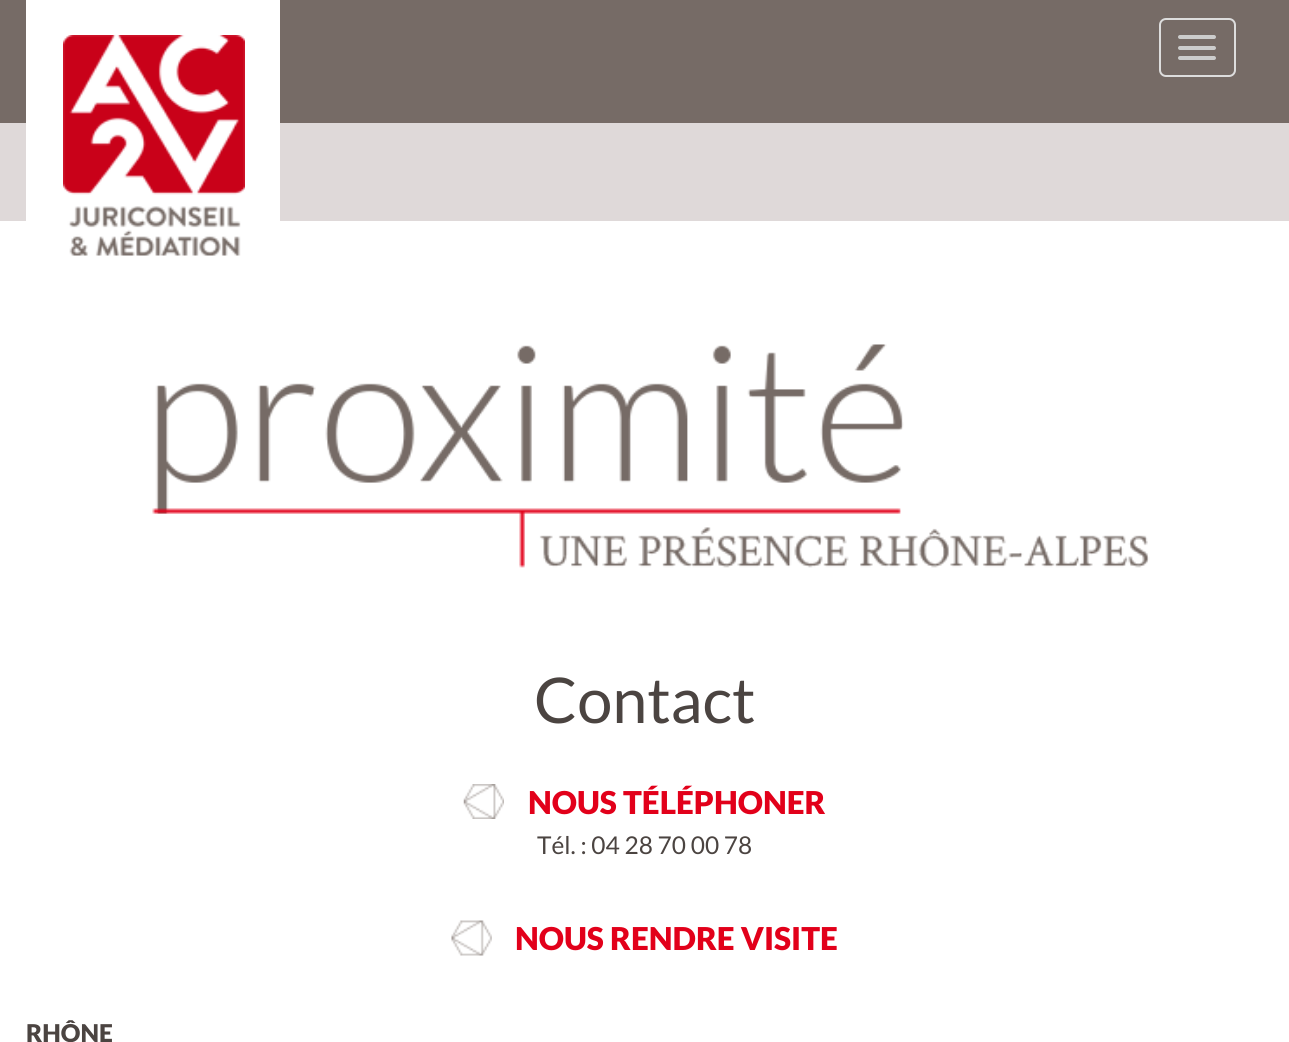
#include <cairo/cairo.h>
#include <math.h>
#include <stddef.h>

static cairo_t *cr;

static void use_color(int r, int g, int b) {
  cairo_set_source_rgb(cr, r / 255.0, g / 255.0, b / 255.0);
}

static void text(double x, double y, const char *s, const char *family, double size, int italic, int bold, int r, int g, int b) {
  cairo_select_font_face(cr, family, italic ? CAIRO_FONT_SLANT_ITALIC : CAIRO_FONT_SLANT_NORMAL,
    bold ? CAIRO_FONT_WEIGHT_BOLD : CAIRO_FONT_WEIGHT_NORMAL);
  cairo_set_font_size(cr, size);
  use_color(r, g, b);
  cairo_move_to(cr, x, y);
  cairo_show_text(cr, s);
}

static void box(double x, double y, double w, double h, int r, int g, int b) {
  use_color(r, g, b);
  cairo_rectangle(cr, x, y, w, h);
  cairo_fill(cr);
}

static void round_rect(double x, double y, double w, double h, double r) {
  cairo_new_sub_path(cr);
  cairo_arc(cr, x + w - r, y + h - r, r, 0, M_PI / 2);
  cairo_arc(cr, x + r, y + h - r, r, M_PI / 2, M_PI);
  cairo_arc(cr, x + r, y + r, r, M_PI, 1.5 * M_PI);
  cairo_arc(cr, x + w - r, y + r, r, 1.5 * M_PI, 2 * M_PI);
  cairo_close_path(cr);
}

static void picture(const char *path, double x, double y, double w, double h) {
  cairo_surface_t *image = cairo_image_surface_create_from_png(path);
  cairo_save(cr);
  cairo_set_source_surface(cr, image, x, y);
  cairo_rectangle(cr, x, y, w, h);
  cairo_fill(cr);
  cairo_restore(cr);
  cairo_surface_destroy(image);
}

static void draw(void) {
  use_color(255, 255, 255);
  cairo_paint(cr);
  box(0, 0, 1289, 123, 118, 107, 102);
  box(0, 123, 1289, 98, 223, 217, 217);
  box(26, 0, 254, 221, 255, 255, 255);
  picture("img_01.png", 63, 35, 182, 221);
  round_rect(1160, 19, 75, 57, 6);
  use_color(221, 221, 221);
  cairo_stroke(cr);
  use_color(204, 204, 204);
  round_rect(1178, 35, 38, 4, 2);
  cairo_fill(cr);
  round_rect(1178, 46, 38, 4, 2);
  cairo_fill(cr);
  round_rect(1178, 56, 38, 4, 2);
  cairo_fill(cr);
  picture("img_02.png", 152, 344, 998, 224);
  picture("img_03.png", 463, 784, 41, 35);
  picture("img_04.png", 451, 920, 41, 36);
  text(534, 723, "Contact", "Lato", 63, 0, 0, 75, 68, 65);
  text(528, 814, "NOUS TÉLÉPHONER", "Lato Black", 31.5, 0, 0, 226, 0, 26);
  text(537, 854, "Tél. : 04 28 70 00 78", "Lato", 24.5, 0, 0, 75, 68, 65);
  text(515, 950, "NOUS RENDRE VISITE", "Lato Black", 31.5, 0, 0, 226, 0, 26);
  text(26, 1042, "RHÔNE", "Lato Black", 24.5, 0, 0, 75, 68, 65);
}

int main(void) {
  cairo_surface_t *surface = cairo_image_surface_create(CAIRO_FORMAT_RGB24, 1289, 1042);
  cr = cairo_create(surface);
  cairo_font_options_t *options = cairo_font_options_create();
  cairo_font_options_set_hint_metrics(options, CAIRO_HINT_METRICS_OFF);
  cairo_font_options_set_hint_style(options, CAIRO_HINT_STYLE_NONE);
  cairo_set_font_options(cr, options);
  cairo_set_miter_limit(cr, 4);
  draw();
  cairo_surface_write_to_png(surface, "out.png");
  cairo_font_options_destroy(options);
  cairo_destroy(cr);
  cairo_surface_destroy(surface);
  return 0;
}
